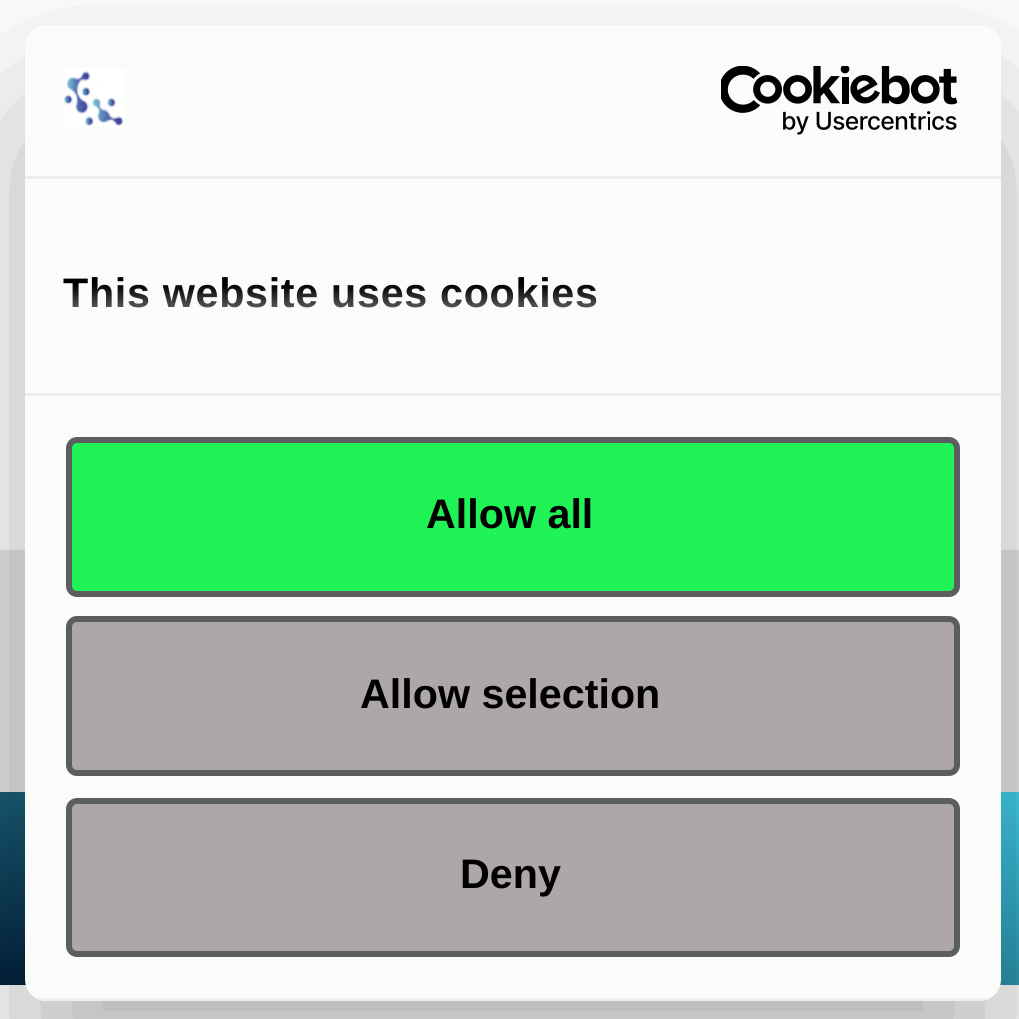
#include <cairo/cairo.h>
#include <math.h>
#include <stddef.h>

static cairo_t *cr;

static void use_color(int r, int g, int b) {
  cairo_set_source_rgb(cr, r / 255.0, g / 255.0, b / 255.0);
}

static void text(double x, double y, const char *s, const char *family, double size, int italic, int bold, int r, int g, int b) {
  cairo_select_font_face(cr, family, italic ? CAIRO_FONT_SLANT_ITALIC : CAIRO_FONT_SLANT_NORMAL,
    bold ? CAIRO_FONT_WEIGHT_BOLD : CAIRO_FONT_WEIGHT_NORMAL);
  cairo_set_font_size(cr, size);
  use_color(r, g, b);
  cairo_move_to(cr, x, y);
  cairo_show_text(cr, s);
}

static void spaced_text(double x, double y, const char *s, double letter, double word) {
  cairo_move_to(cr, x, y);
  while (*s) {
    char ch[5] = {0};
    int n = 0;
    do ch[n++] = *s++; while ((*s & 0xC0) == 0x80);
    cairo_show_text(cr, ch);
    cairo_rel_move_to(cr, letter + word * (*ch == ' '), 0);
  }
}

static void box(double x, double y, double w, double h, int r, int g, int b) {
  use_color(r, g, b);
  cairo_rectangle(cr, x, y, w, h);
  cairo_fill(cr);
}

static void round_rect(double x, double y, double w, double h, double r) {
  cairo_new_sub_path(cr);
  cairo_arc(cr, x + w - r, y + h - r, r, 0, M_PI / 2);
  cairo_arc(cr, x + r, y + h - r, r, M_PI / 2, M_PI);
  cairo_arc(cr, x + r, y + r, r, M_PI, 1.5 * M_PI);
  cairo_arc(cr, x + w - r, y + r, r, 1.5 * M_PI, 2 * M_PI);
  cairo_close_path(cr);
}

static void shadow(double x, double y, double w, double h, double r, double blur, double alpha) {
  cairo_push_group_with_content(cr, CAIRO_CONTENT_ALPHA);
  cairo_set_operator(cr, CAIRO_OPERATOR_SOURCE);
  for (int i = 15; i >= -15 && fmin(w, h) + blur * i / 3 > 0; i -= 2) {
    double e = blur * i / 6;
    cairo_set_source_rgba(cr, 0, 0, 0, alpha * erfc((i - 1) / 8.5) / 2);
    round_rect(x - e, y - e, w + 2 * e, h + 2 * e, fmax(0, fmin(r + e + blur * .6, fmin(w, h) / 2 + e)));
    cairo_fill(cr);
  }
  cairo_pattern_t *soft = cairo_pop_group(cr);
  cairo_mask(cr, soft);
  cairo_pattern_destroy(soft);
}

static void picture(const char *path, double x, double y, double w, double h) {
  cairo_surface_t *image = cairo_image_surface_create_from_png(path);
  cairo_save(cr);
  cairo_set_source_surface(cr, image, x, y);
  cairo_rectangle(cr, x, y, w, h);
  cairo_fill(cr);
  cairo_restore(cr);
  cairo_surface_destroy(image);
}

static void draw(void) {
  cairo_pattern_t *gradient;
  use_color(255, 255, 255);
  cairo_paint(cr);
  box(0, 550, 1019, 242, 230, 230, 230);
  gradient = cairo_pattern_create_linear(420, 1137, 601, 639);
  cairo_pattern_add_color_stop_rgba(gradient, 0, 0.012, 0.129, 0.239, 1);
  cairo_pattern_add_color_stop_rgba(gradient, 1, 0.259, 0.824, 0.925, 1);
  cairo_set_source(cr, gradient);
  cairo_pattern_destroy(gradient);
  cairo_rectangle(cr, 0, 792, 1019, 193);
  cairo_fill(cr);
  cairo_save(cr);
  cairo_set_fill_rule(cr, CAIRO_FILL_RULE_EVEN_ODD);
  cairo_new_path(cr);
  cairo_move_to(cr, 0, 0);
  cairo_line_to(cr, 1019, 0);
  cairo_line_to(cr, 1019, 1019);
  cairo_line_to(cr, 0, 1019);
  cairo_close_path(cr);
  cairo_move_to(cr, 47, 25);
  cairo_line_to(cr, 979, 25);
  cairo_curve_to(cr, 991, 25, 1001, 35, 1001, 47);
  cairo_line_to(cr, 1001, 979);
  cairo_curve_to(cr, 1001, 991, 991, 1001, 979, 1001);
  cairo_line_to(cr, 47, 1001);
  cairo_curve_to(cr, 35, 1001, 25, 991, 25, 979);
  cairo_line_to(cr, 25, 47);
  cairo_curve_to(cr, 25, 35, 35, 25, 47, 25);
  cairo_close_path(cr);
  cairo_clip(cr);
  use_color(0, 0, 0);
  shadow(25, 113, 976, 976, 22, 93.5, 0.3);
  cairo_restore(cr);
  use_color(249, 252, 248);
  round_rect(25, 25, 976, 976, 22);
  cairo_fill(cr);
  box(25, 176, 976, 3, 238, 238, 238);
  picture("img_01.png", 64, 68, 61, 62);
  picture("img_02.png", 721, 66, 237, 69);
  box(25, 393, 976, 3, 238, 238, 238);
  cairo_save(cr);
  round_rect(25, 25, 976, 976, 22);
  cairo_clip(cr);
  box(36, 998, 954, 3, 238, 238, 238);
  cairo_restore(cr);
  use_color(31, 243, 86);
  round_rect(69, 440, 888, 154, 8);
  cairo_fill_preserve(cr);
  use_color(92, 93, 96);
  cairo_set_line_width(cr, 6);
  cairo_stroke(cr);
  use_color(173, 167, 167);
  round_rect(69, 619, 888, 154, 8);
  cairo_fill_preserve(cr);
  use_color(92, 93, 96);
  cairo_stroke(cr);
  use_color(173, 167, 167);
  round_rect(69, 801, 888, 153, 8);
  cairo_fill_preserve(cr);
  use_color(92, 93, 96);
  cairo_stroke(cr);
  cairo_select_font_face(cr, "Liberation Sans", CAIRO_FONT_SLANT_NORMAL, CAIRO_FONT_WEIGHT_BOLD);
  cairo_set_font_size(cr, 41.25);
  use_color(0, 0, 0);
  spaced_text(63, 307, "This website uses cookies", 0.7, 0);
  gradient = cairo_pattern_create_linear(494, 392, 494, 285);
  cairo_pattern_add_color_stop_rgba(gradient, 0, 0.976, 0.988, 0.973, 1);
  cairo_pattern_add_color_stop_rgba(gradient, 0.5, 0.976, 0.988, 0.973, 0.8);
  cairo_pattern_add_color_stop_rgba(gradient, 1, 0.976, 0.988, 0.973, 0);
  cairo_set_source(cr, gradient);
  cairo_pattern_destroy(gradient);
  cairo_rectangle(cr, 72, 286, 525, 22);
  cairo_fill(cr);
  text(426, 528, "Allow all", "Liberation Sans", 41.25, 0, 1, 0, 0, 0);
  text(360, 708, "Allow selection", "Liberation Sans", 41.25, 0, 1, 0, 0, 0);
  text(460, 888, "Deny", "Liberation Sans", 41.25, 0, 1, 0, 0, 0);
}

int main(void) {
  cairo_surface_t *surface = cairo_image_surface_create(CAIRO_FORMAT_RGB24, 1019, 1019);
  cr = cairo_create(surface);
  cairo_font_options_t *options = cairo_font_options_create();
  cairo_font_options_set_hint_metrics(options, CAIRO_HINT_METRICS_OFF);
  cairo_font_options_set_hint_style(options, CAIRO_HINT_STYLE_NONE);
  cairo_set_font_options(cr, options);
  cairo_set_miter_limit(cr, 4);
  draw();
  cairo_surface_write_to_png(surface, "out.png");
  cairo_font_options_destroy(options);
  cairo_destroy(cr);
  cairo_surface_destroy(surface);
  return 0;
}
